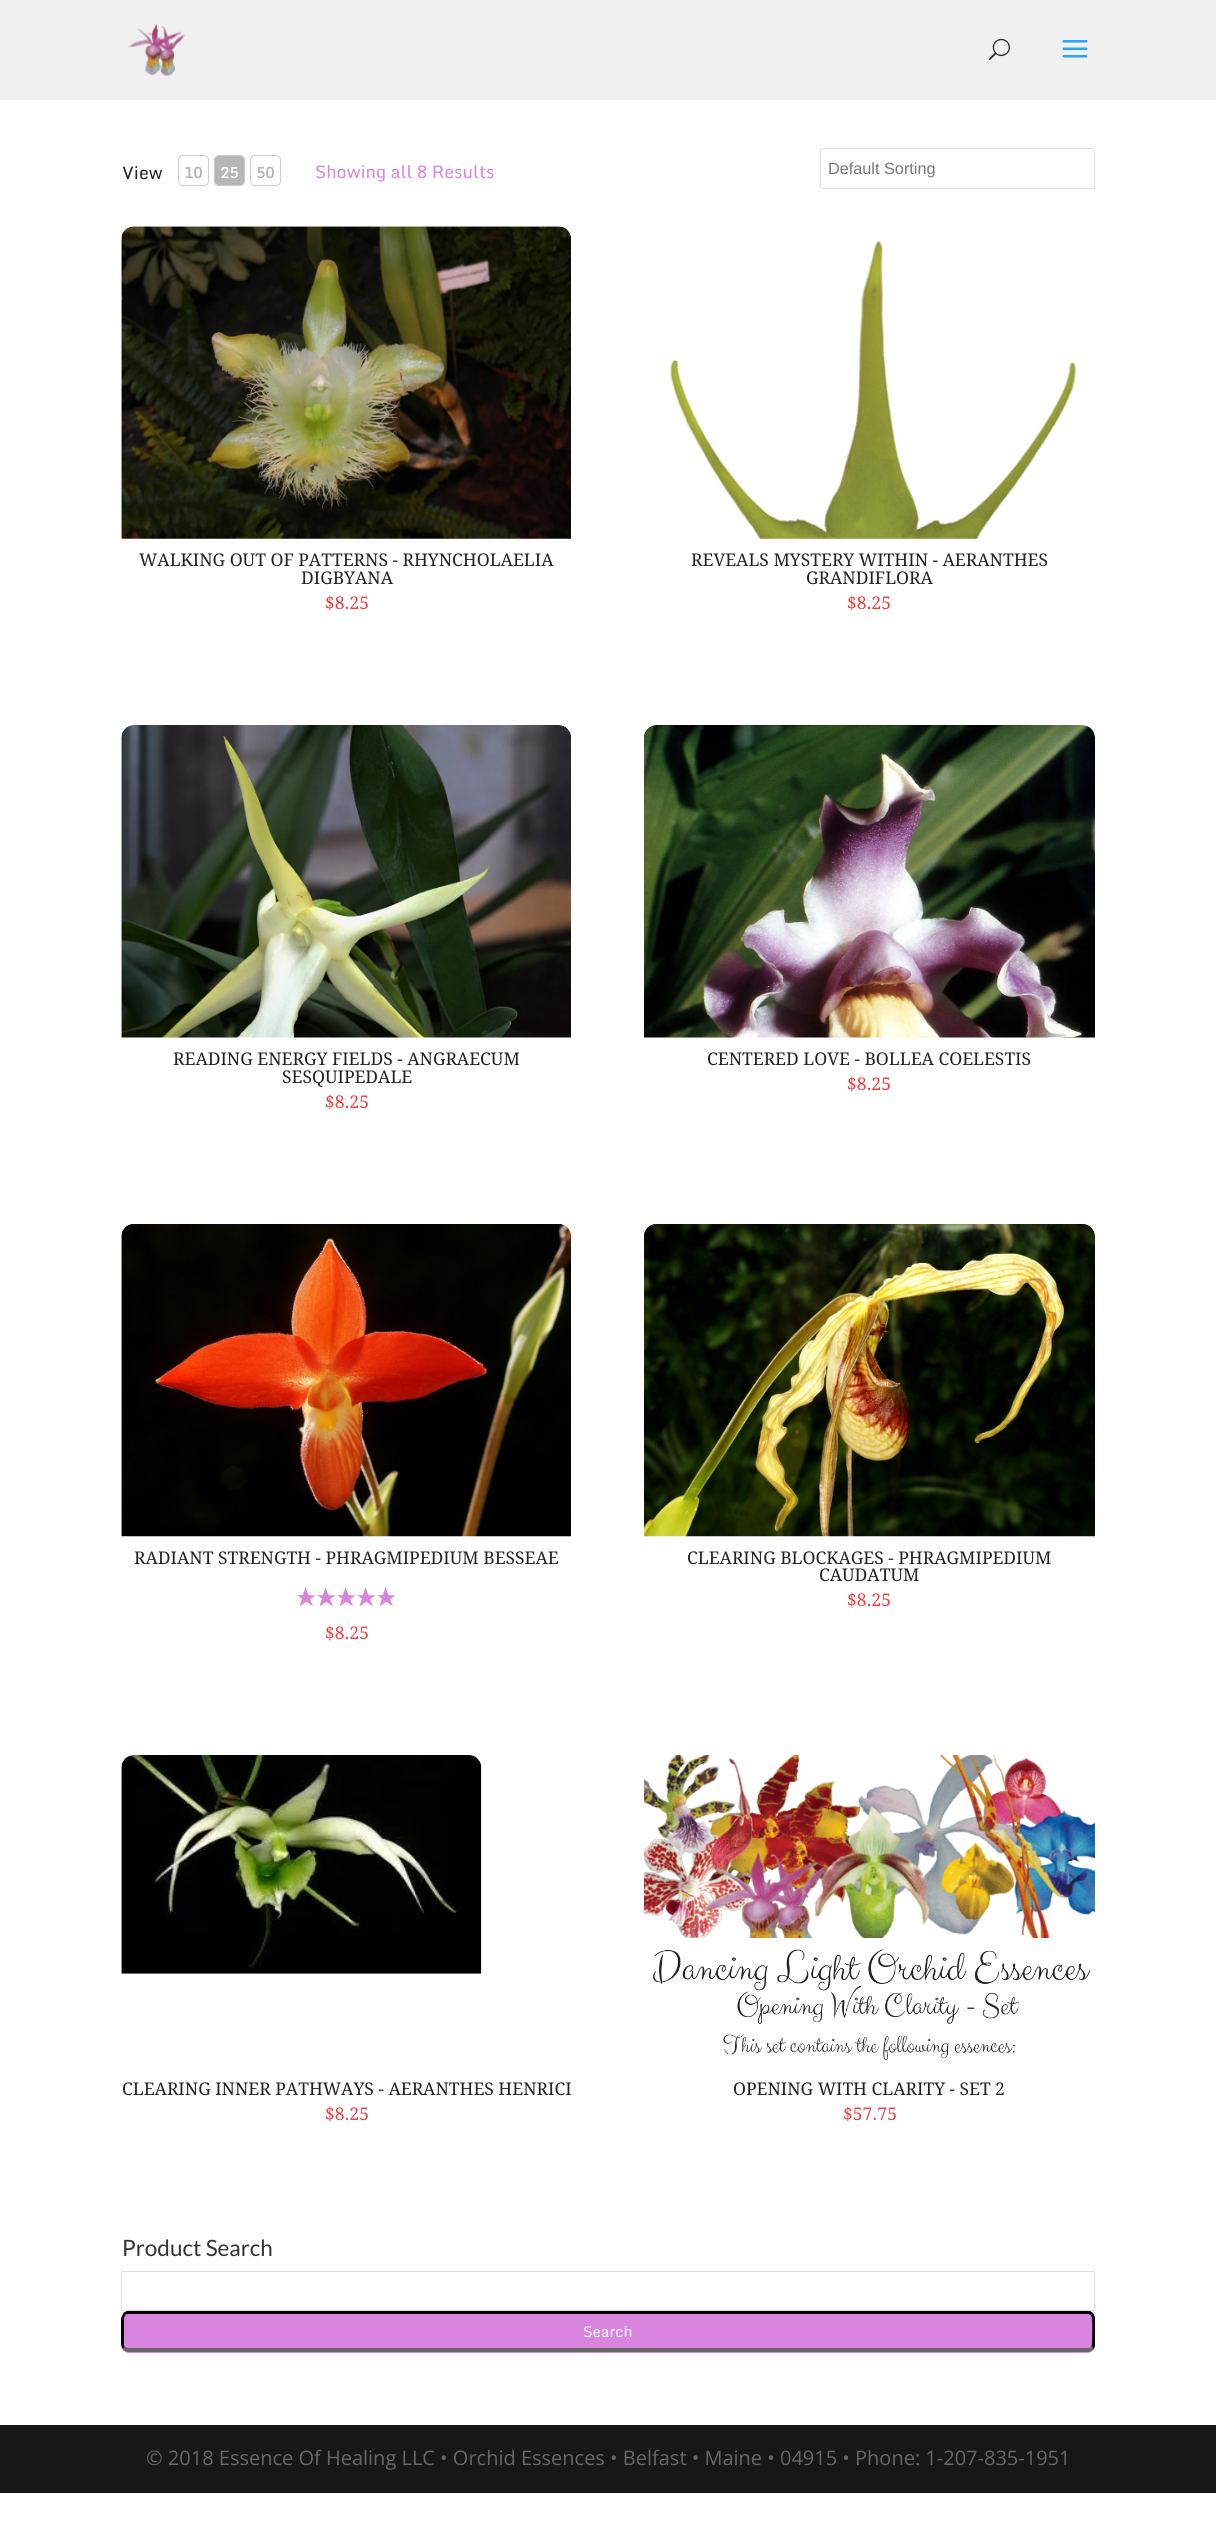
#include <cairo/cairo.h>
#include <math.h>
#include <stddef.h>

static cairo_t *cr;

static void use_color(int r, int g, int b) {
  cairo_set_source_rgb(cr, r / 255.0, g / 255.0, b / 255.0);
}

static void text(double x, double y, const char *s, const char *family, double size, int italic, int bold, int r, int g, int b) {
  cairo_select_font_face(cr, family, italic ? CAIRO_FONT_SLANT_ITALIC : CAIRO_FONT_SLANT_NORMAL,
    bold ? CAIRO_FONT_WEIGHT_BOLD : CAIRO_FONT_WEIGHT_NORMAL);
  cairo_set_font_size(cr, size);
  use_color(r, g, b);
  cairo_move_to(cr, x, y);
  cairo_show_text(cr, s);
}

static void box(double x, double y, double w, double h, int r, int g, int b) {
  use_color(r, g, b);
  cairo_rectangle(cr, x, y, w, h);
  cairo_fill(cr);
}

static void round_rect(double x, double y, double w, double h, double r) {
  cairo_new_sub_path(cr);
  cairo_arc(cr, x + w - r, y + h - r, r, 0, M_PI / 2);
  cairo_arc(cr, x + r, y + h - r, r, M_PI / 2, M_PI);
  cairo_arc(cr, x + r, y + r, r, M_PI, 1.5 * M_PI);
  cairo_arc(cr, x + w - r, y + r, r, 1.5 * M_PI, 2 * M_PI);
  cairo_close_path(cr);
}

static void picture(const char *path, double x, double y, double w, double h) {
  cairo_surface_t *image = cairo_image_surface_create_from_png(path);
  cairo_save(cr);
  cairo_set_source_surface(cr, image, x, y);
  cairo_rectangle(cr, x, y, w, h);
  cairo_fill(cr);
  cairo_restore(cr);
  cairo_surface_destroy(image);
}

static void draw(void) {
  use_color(255, 255, 255);
  cairo_paint(cr);
  cairo_set_source_rgba(cr, 0.918, 0.918, 0.918, 0.75);
  cairo_rectangle(cr, 0, 0, 1216, 100);
  cairo_fill(cr);
  picture("img_01.png", 128, 24, 58, 52);
  picture("img_02.png", 988, 38, 22, 23);
  picture("img_03.png", 1062, 40, 26, 18);
  round_rect(178.5, 155.5, 30, 30, 4.5);
  use_color(204, 204, 204);
  cairo_set_line_width(cr, 1);
  cairo_stroke(cr);
  use_color(182, 182, 182);
  round_rect(214.5, 155.5, 30, 30, 4.5);
  cairo_fill_preserve(cr);
  use_color(204, 204, 204);
  cairo_stroke(cr);
  round_rect(250.5, 155.5, 30, 30, 4.5);
  cairo_stroke(cr);
  round_rect(820.5, 148.5, 274, 40, 2);
  use_color(225, 225, 225);
  cairo_stroke(cr);
  picture("img_04.png", 121, 226, 450, 313);
  picture("img_05.png", 669, 240, 408, 299);
  picture("img_06.png", 121, 725, 450, 313);
  picture("img_07.png", 644, 725, 451, 313);
  picture("img_08.png", 121, 1224, 450, 313);
  use_color(217, 132, 223);
  cairo_new_path(cr);
  cairo_move_to(cr, 313, 1606.5);
  cairo_line_to(cr, 297, 1595);
  cairo_line_to(cr, 308.5, 1595.5);
  cairo_close_path(cr);
  cairo_fill(cr);
  cairo_new_path(cr);
  cairo_move_to(cr, 309.5, 1597.5);
  cairo_line_to(cr, 302, 1597.5);
  cairo_line_to(cr, 305.5, 1587.5);
  cairo_close_path(cr);
  cairo_fill(cr);
  cairo_new_path(cr);
  cairo_move_to(cr, 315.5, 1595.5);
  cairo_line_to(cr, 299.5, 1606.5);
  cairo_line_to(cr, 303, 1595);
  cairo_close_path(cr);
  cairo_move_to(cr, 333, 1606.5);
  cairo_line_to(cr, 317, 1595);
  cairo_line_to(cr, 328.5, 1595.5);
  cairo_close_path(cr);
  cairo_fill(cr);
  cairo_new_path(cr);
  cairo_move_to(cr, 329.5, 1597.5);
  cairo_line_to(cr, 322, 1597.5);
  cairo_line_to(cr, 325.5, 1587.5);
  cairo_close_path(cr);
  cairo_fill(cr);
  cairo_new_path(cr);
  cairo_move_to(cr, 335.5, 1595.5);
  cairo_line_to(cr, 319.5, 1606.5);
  cairo_line_to(cr, 323, 1595);
  cairo_close_path(cr);
  cairo_move_to(cr, 353, 1606.5);
  cairo_line_to(cr, 337, 1595);
  cairo_line_to(cr, 348.5, 1595.5);
  cairo_close_path(cr);
  cairo_fill(cr);
  cairo_new_path(cr);
  cairo_move_to(cr, 349.5, 1597.5);
  cairo_line_to(cr, 342, 1597.5);
  cairo_line_to(cr, 345.5, 1587.5);
  cairo_close_path(cr);
  cairo_fill(cr);
  cairo_new_path(cr);
  cairo_move_to(cr, 355.5, 1595.5);
  cairo_line_to(cr, 339.5, 1606.5);
  cairo_line_to(cr, 343, 1595);
  cairo_close_path(cr);
  cairo_move_to(cr, 373, 1606.5);
  cairo_line_to(cr, 357, 1595);
  cairo_line_to(cr, 368.5, 1595.5);
  cairo_close_path(cr);
  cairo_fill(cr);
  cairo_new_path(cr);
  cairo_move_to(cr, 369.5, 1597.5);
  cairo_line_to(cr, 362, 1597.5);
  cairo_line_to(cr, 365.5, 1587.5);
  cairo_close_path(cr);
  cairo_fill(cr);
  cairo_new_path(cr);
  cairo_move_to(cr, 375.5, 1595.5);
  cairo_line_to(cr, 359.5, 1606.5);
  cairo_line_to(cr, 363, 1595);
  cairo_close_path(cr);
  cairo_move_to(cr, 393, 1606.5);
  cairo_line_to(cr, 377, 1595);
  cairo_line_to(cr, 388.5, 1595.5);
  cairo_close_path(cr);
  cairo_fill(cr);
  cairo_new_path(cr);
  cairo_move_to(cr, 389.5, 1597.5);
  cairo_line_to(cr, 382, 1597.5);
  cairo_line_to(cr, 385.5, 1587.5);
  cairo_close_path(cr);
  cairo_fill(cr);
  cairo_new_path(cr);
  cairo_move_to(cr, 395.5, 1595.5);
  cairo_line_to(cr, 379.5, 1606.5);
  cairo_line_to(cr, 383, 1595);
  cairo_close_path(cr);
  cairo_fill(cr);
  picture("img_09.png", 644, 1224, 451, 313);
  picture("img_10.png", 121, 1755, 361, 219);
  picture("img_11.png", 644, 1755, 451, 305);
  cairo_rectangle(cr, 121.5, 2271.5, 973, 39);
  use_color(225, 225, 225);
  cairo_stroke(cr);
  use_color(217, 132, 223);
  round_rect(121, 2311, 974, 42, 8);
  cairo_fill(cr);
  use_color(0, 0, 0);
  cairo_new_path(cr);
  cairo_move_to(cr, 129, 2314);
  cairo_curve_to(cr, 128, 2314, 126, 2314, 125, 2315);
  cairo_line_to(cr, 123, 2313);
  cairo_line_to(cr, 127, 2311);
  cairo_line_to(cr, 1090, 2311);
  cairo_line_to(cr, 1093, 2313);
  cairo_line_to(cr, 1091, 2315);
  cairo_curve_to(cr, 1090, 2315, 1089, 2314, 1088, 2314);
  cairo_close_path(cr);
  cairo_fill(cr);
  cairo_new_path(cr);
  cairo_move_to(cr, 1095, 2346);
  cairo_curve_to(cr, 1094.5, 2347, 1094, 2348.5, 1093.5, 2349.5);
  cairo_line_to(cr, 1091.5, 2346);
  cairo_curve_to(cr, 1092.5, 2345, 1092.5, 2320, 1092, 2318);
  cairo_line_to(cr, 1091, 2315.5);
  cairo_line_to(cr, 1093, 2313);
  cairo_curve_to(cr, 1094, 2314.5, 1094.5, 2316, 1095, 2317.5);
  cairo_close_path(cr);
  cairo_fill(cr);
  use_color(102, 102, 102);
  cairo_new_path(cr);
  cairo_move_to(cr, 1093, 2349);
  cairo_curve_to(cr, 1092, 2351, 1091, 2352, 1088, 2352);
  cairo_line_to(cr, 129, 2352);
  cairo_curve_to(cr, 126, 2352, 124, 2351, 123, 2349);
  cairo_line_to(cr, 124, 2346);
  cairo_curve_to(cr, 125, 2347, 127, 2348, 129, 2348);
  cairo_line_to(cr, 1088, 2348);
  cairo_curve_to(cr, 1090, 2348, 1091, 2347, 1092, 2346);
  cairo_close_path(cr);
  cairo_fill(cr);
  use_color(0, 0, 0);
  cairo_new_path(cr);
  cairo_move_to(cr, 121, 2319);
  cairo_curve_to(cr, 121.5, 2317, 122.5, 2315, 123.5, 2313.5);
  cairo_line_to(cr, 125.5, 2315.5);
  cairo_curve_to(cr, 124.5, 2316, 124.5, 2317, 124, 2318);
  cairo_line_to(cr, 124, 2345);
  cairo_line_to(cr, 124.5, 2346);
  cairo_line_to(cr, 123, 2349);
  cairo_curve_to(cr, 122, 2347.5, 121.5, 2346, 121, 2344);
  cairo_close_path(cr);
  cairo_fill(cr);
  box(0, 2425, 1216, 68, 23, 23, 23);
  text(122, 179, "View", "Monda", 17.5, 0, 0, 34, 34, 34);
  text(184, 178, "10", "Monda", 15, 0, 1, 182, 182, 182);
  text(220, 178, "25", "Monda", 15, 0, 1, 255, 255, 255);
  text(256, 178, "50", "Monda", 15, 0, 1, 182, 182, 182);
  text(315, 178, "Showing all 8 Results", "Monda", 17.5, 0, 0, 217, 132, 223);
  text(828, 174, "Default Sorting", "Liberation Sans", 16.25, 0, 0, 119, 119, 119);
  text(139, 566, "WALKING OUT OF PATTERNS - RHYNCHOLAELIA", "Droid Serif", 17.5, 0, 0, 34, 34, 34);
  text(301, 584, "DIGBYANA", "Droid Serif", 17.5, 0, 0, 34, 34, 34);
  text(325, 609, "$8.25", "Droid Serif", 17.5, 0, 0, 238, 59, 59);
  text(691, 566, "REVEALS MYSTERY WITHIN - AERANTHES", "Droid Serif", 17.5, 0, 0, 34, 34, 34);
  text(806, 584, "GRANDIFLORA", "Droid Serif", 17.5, 0, 0, 34, 34, 34);
  text(847, 609, "$8.25", "Droid Serif", 17.5, 0, 0, 238, 59, 59);
  text(173, 1065, "READING ENERGY FIELDS - ANGRAECUM", "Droid Serif", 17.5, 0, 0, 34, 34, 34);
  text(282, 1083, "SESQUIPEDALE", "Droid Serif", 17.5, 0, 0, 34, 34, 34);
  text(325, 1108, "$8.25", "Droid Serif", 17.5, 0, 0, 238, 59, 59);
  text(707, 1065, "CENTERED LOVE - BOLLEA COELESTIS", "Droid Serif", 17.5, 0, 0, 34, 34, 34);
  text(847, 1090, "$8.25", "Droid Serif", 17.5, 0, 0, 238, 59, 59);
  text(134, 1564, "RADIANT STRENGTH - PHRAGMIPEDIUM BESSEAE", "Droid Serif", 17.5, 0, 0, 34, 34, 34);
  text(325, 1639, "$8.25", "Droid Serif", 17.5, 0, 0, 238, 59, 59);
  text(687, 1564, "CLEARING BLOCKAGES - PHRAGMIPEDIUM", "Droid Serif", 17.5, 0, 0, 34, 34, 34);
  text(819, 1581, "CAUDATUM", "Droid Serif", 17.5, 0, 0, 34, 34, 34);
  text(847, 1606, "$8.25", "Droid Serif", 17.5, 0, 0, 238, 59, 59);
  text(122, 2095, "CLEARING INNER PATHWAYS - AERANTHES HENRICI", "Droid Serif", 17.5, 0, 0, 34, 34, 34);
  text(325, 2120, "$8.25", "Droid Serif", 17.5, 0, 0, 238, 59, 59);
  text(733, 2095, "OPENING WITH CLARITY - SET 2", "Droid Serif", 17.5, 0, 0, 34, 34, 34);
  text(843, 2120, "$57.75", "Droid Serif", 17.5, 0, 0, 238, 59, 59);
  text(122, 2256, "Product Search", "Lato", 22.5, 0, 0, 51, 51, 51);
  text(583, 2337, "Search", "Monda", 15, 0, 0, 255, 255, 255);
  text(146, 2465, "© 2018 Essence Of Healing LLC • Orchid Essences • Belfast • Maine • 04915 • Phone: 1-207-835-1951", "Open Sans", 20, 0, 0, 102, 102, 102);
}

int main(void) {
  cairo_surface_t *surface = cairo_image_surface_create(CAIRO_FORMAT_RGB24, 1216, 2524);
  cr = cairo_create(surface);
  cairo_font_options_t *options = cairo_font_options_create();
  cairo_font_options_set_hint_metrics(options, CAIRO_HINT_METRICS_OFF);
  cairo_font_options_set_hint_style(options, CAIRO_HINT_STYLE_NONE);
  cairo_set_font_options(cr, options);
  cairo_set_miter_limit(cr, 4);
  draw();
  cairo_surface_write_to_png(surface, "out.png");
  cairo_font_options_destroy(options);
  cairo_destroy(cr);
  cairo_surface_destroy(surface);
  return 0;
}
